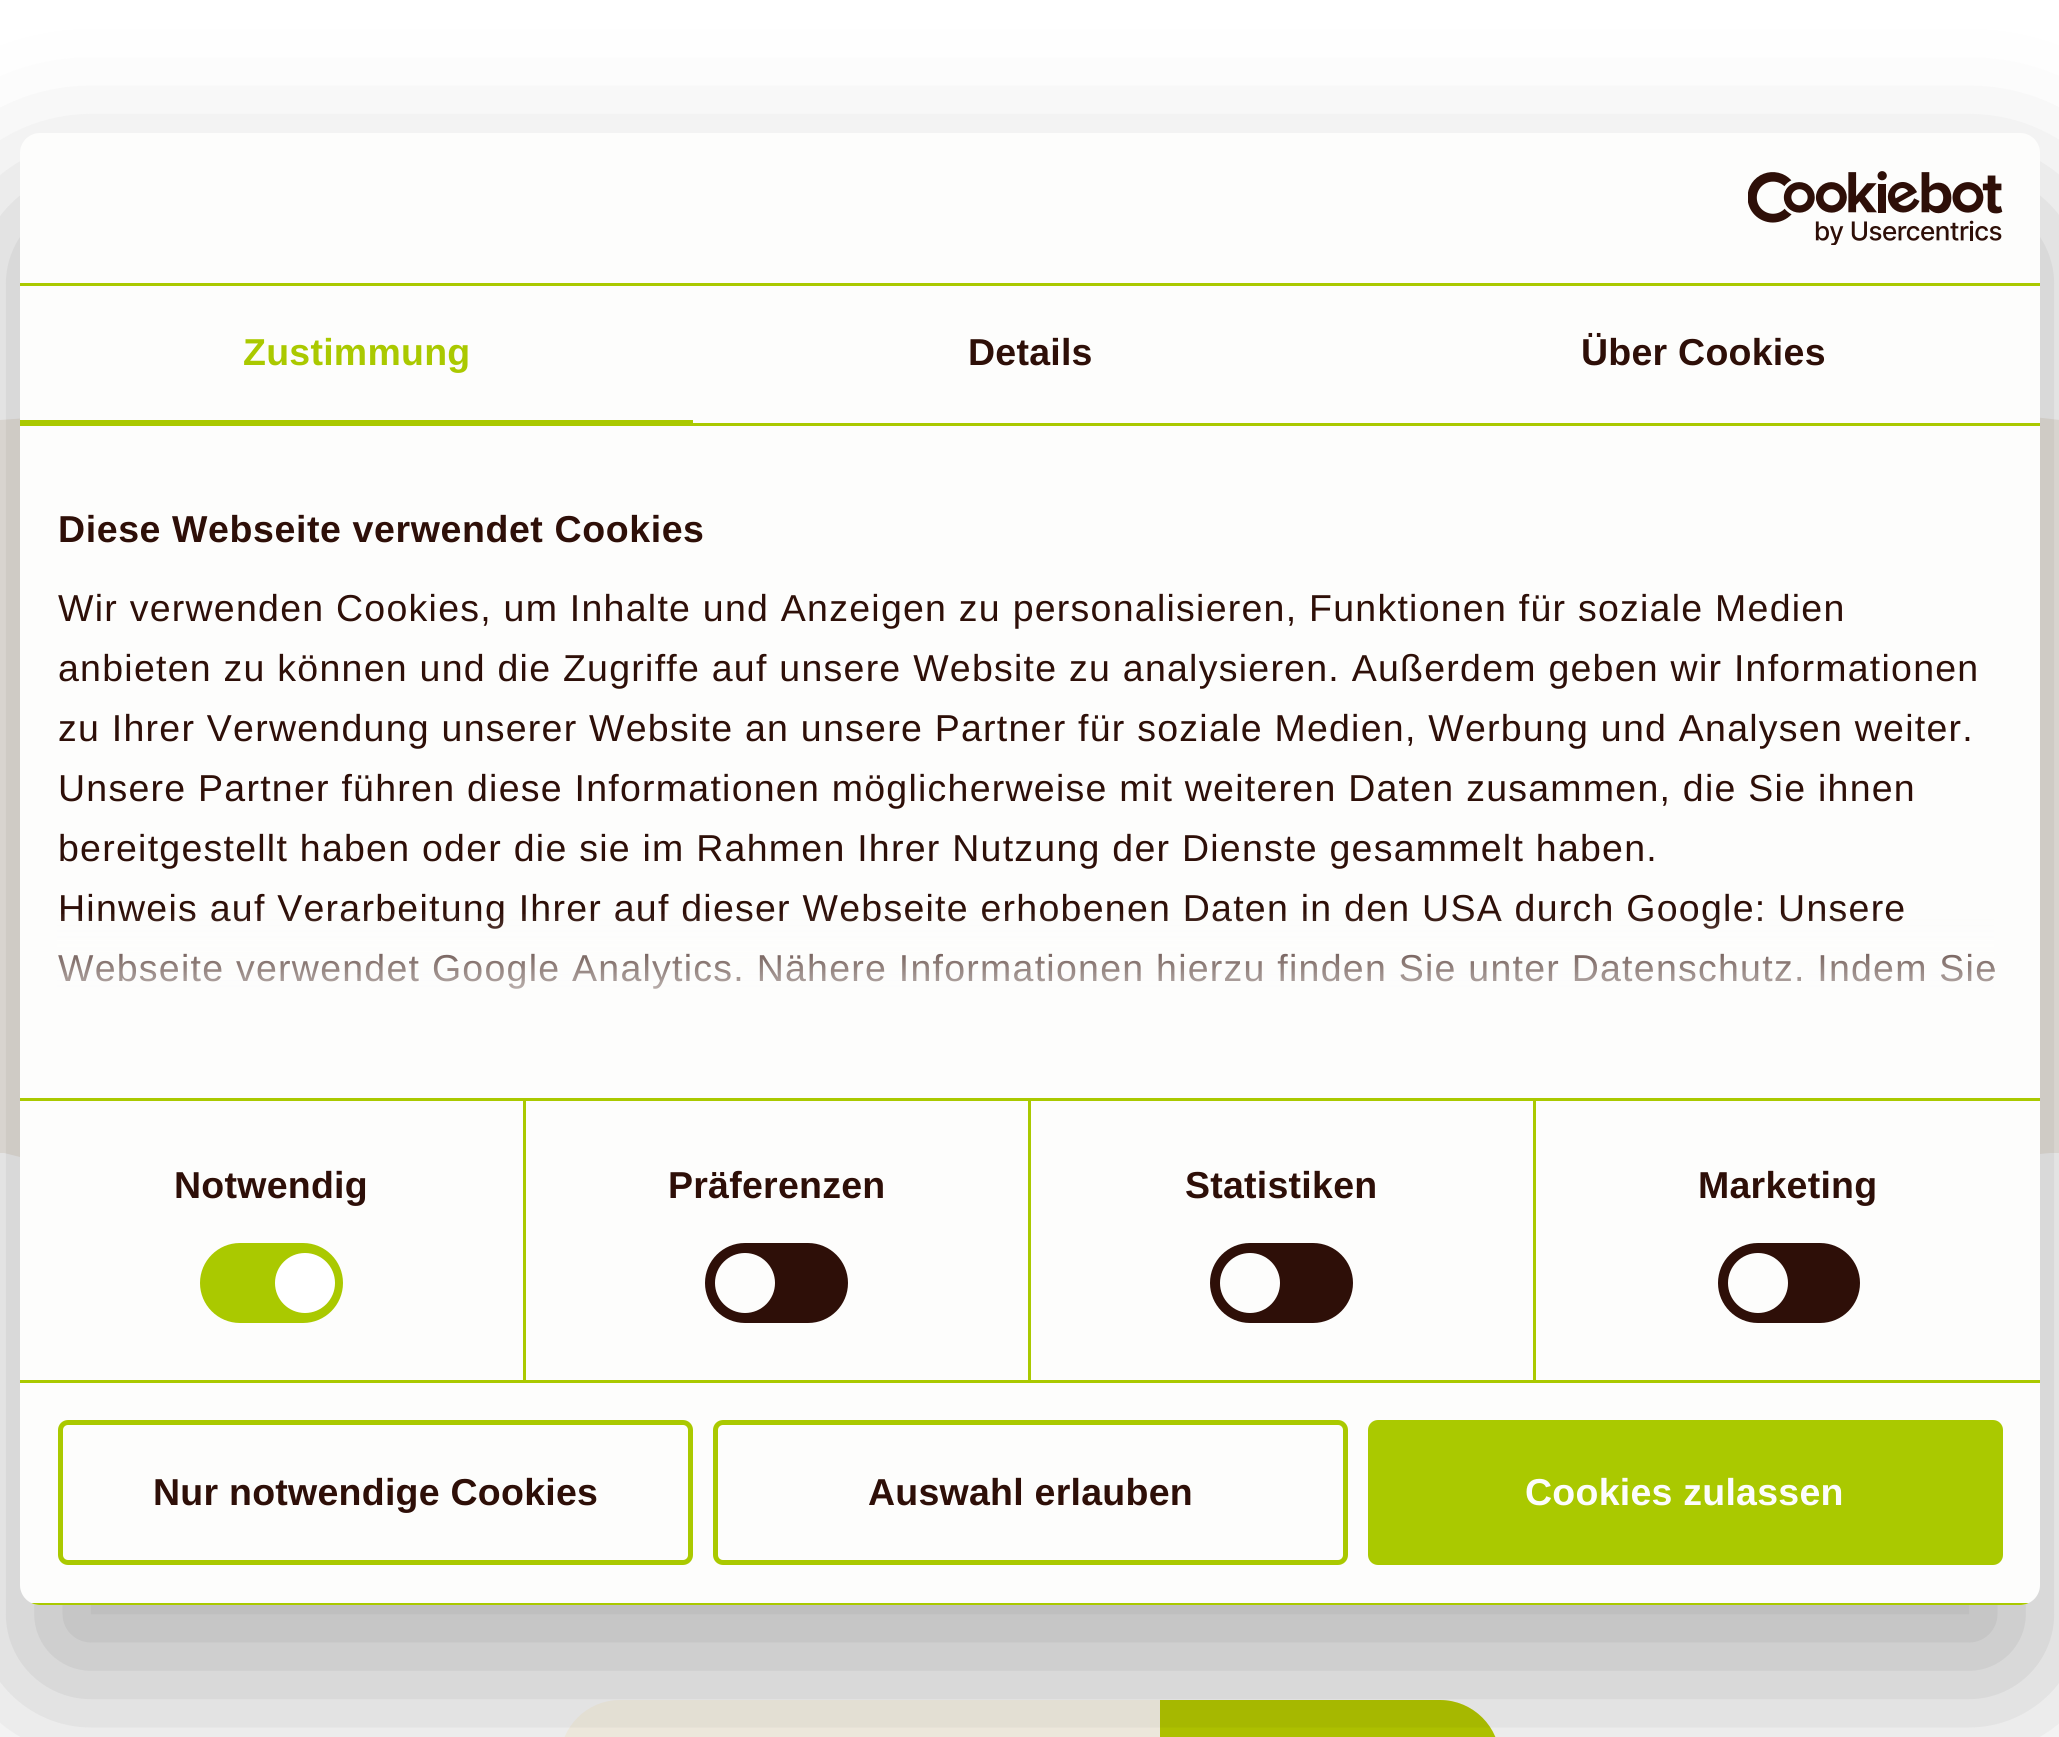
#include <cairo/cairo.h>
#include <math.h>
#include <stddef.h>

static cairo_t *cr;

static void use_color(int r, int g, int b) {
  cairo_set_source_rgb(cr, r / 255.0, g / 255.0, b / 255.0);
}

static void spaced_text(double x, double y, const char *s, double letter, double word) {
  cairo_move_to(cr, x, y);
  while (*s) {
    char ch[5] = {0};
    int n = 0;
    do ch[n++] = *s++; while ((*s & 0xC0) == 0x80);
    cairo_show_text(cr, ch);
    cairo_rel_move_to(cr, letter + word * (*ch == ' '), 0);
  }
}

static void box(double x, double y, double w, double h, int r, int g, int b) {
  use_color(r, g, b);
  cairo_rectangle(cr, x, y, w, h);
  cairo_fill(cr);
}

static void round_rect(double x, double y, double w, double h, double r) {
  cairo_new_sub_path(cr);
  cairo_arc(cr, x + w - r, y + h - r, r, 0, M_PI / 2);
  cairo_arc(cr, x + r, y + h - r, r, M_PI / 2, M_PI);
  cairo_arc(cr, x + r, y + r, r, M_PI, 1.5 * M_PI);
  cairo_arc(cr, x + w - r, y + r, r, 1.5 * M_PI, 2 * M_PI);
  cairo_close_path(cr);
}

static void shadow(double x, double y, double w, double h, double r, double blur, double alpha) {
  cairo_push_group_with_content(cr, CAIRO_CONTENT_ALPHA);
  cairo_set_operator(cr, CAIRO_OPERATOR_SOURCE);
  for (int i = 15; i >= -15 && fmin(w, h) + blur * i / 3 > 0; i -= 2) {
    double e = blur * i / 6;
    cairo_set_source_rgba(cr, 0, 0, 0, alpha * erfc((i - 1) / 8.5) / 2);
    round_rect(x - e, y - e, w + 2 * e, h + 2 * e, fmax(0, fmin(r + e + blur * .6, fmin(w, h) / 2 + e)));
    cairo_fill(cr);
  }
  cairo_pattern_t *soft = cairo_pop_group(cr);
  cairo_mask(cr, soft);
  cairo_pattern_destroy(soft);
}

static void picture(const char *path, double x, double y, double w, double h) {
  cairo_surface_t *image = cairo_image_surface_create_from_png(path);
  cairo_save(cr);
  cairo_set_source_surface(cr, image, x, y);
  cairo_rectangle(cr, x, y, w, h);
  cairo_fill(cr);
  cairo_restore(cr);
  cairo_surface_destroy(image);
}

static void draw(void) {
  cairo_pattern_t *gradient;
  use_color(255, 255, 255);
  cairo_paint(cr);
  use_color(243, 238, 232);
  cairo_new_path(cr);
  cairo_move_to(cr, 1236, 328);
  cairo_line_to(cr, 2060, 420);
  cairo_line_to(cr, 0, 420);
  cairo_close_path(cr);
  cairo_fill(cr);
  box(0, 420, 2059, 733, 243, 238, 232);
  cairo_new_path(cr);
  cairo_move_to(cr, 0, 1152);
  cairo_line_to(cr, 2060, 1152);
  cairo_line_to(cr, 577, 1297);
  cairo_close_path(cr);
  cairo_fill(cr);
  use_color(255, 250, 237);
  round_rect(561.5, 1701.5, 937, 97, 58.5);
  cairo_fill_preserve(cr);
  cairo_set_line_width(cr, 3);
  cairo_stroke(cr);
  use_color(187, 207, 0);
  cairo_new_path(cr);
  cairo_move_to(cr, 1160, 1700);
  cairo_line_to(cr, 1440, 1700);
  cairo_curve_to(cr, 1473, 1700, 1500, 1727, 1500, 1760);
  cairo_line_to(cr, 1500, 1737);
  cairo_curve_to(cr, 1500, 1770, 1473, 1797, 1440, 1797);
  cairo_line_to(cr, 1160, 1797);
  cairo_close_path(cr);
  cairo_fill(cr);
  use_color(0, 0, 0);
  shadow(20, 213, 2020, 1472, 20, 85, 0.3);
  use_color(253, 253, 252);
  round_rect(20, 133, 2020, 1472, 20);
  cairo_fill(cr);
  box(20, 283, 2020, 3, 170, 201, 0);
  picture("img_01.png", 1748, 171, 255, 74);
  box(20, 423, 2020, 3, 170, 201, 0);
  box(20, 420, 673, 3, 170, 201, 0);
  box(523, 1100, 3, 280, 170, 201, 0);
  box(1028, 1100, 3, 280, 170, 201, 0);
  box(1533, 1100, 3, 280, 170, 201, 0);
  box(20, 1098, 2020, 3, 170, 201, 0);
  box(20, 1380, 2020, 3, 170, 201, 0);
  round_rect(200, 1243, 143, 80, 40);
  cairo_fill(cr);
  use_color(255, 255, 255);
  cairo_arc(cr, 305, 1283, 30, 0, 2 * M_PI);
  cairo_fill(cr);
  use_color(46, 15, 8);
  round_rect(705, 1243, 143, 80, 40);
  cairo_fill(cr);
  use_color(253, 253, 252);
  cairo_arc(cr, 745, 1283, 30, 0, 2 * M_PI);
  cairo_fill(cr);
  use_color(46, 15, 8);
  round_rect(1210, 1243, 143, 80, 40);
  cairo_fill(cr);
  use_color(253, 253, 252);
  cairo_arc(cr, 1250, 1283, 30, 0, 2 * M_PI);
  cairo_fill(cr);
  use_color(46, 15, 8);
  round_rect(1718, 1243, 142, 80, 40);
  cairo_fill(cr);
  use_color(253, 253, 252);
  cairo_arc(cr, 1758, 1283, 30, 0, 2 * M_PI);
  cairo_fill(cr);
  cairo_save(cr);
  round_rect(20, 133, 2020, 1472, 20);
  cairo_clip(cr);
  box(31, 1603, 1998, 2, 170, 201, 0);
  cairo_restore(cr);
  round_rect(60.5, 1422.5, 630, 140, 7.5);
  use_color(170, 201, 0);
  cairo_set_line_width(cr, 5);
  cairo_stroke(cr);
  round_rect(715.5, 1422.5, 630, 140, 7.5);
  cairo_stroke(cr);
  round_rect(1370.5, 1422.5, 630, 140, 7.5);
  cairo_fill_preserve(cr);
  cairo_stroke(cr);
  cairo_select_font_face(cr, "Liberation Sans", CAIRO_FONT_SLANT_NORMAL, CAIRO_FONT_WEIGHT_BOLD);
  cairo_set_font_size(cr, 37.5);
  spaced_text(243, 365, "Zustimmung", 0.25, 0);
  use_color(46, 15, 8);
  spaced_text(968, 365, "Details", 0.25, 0);
  spaced_text(1581, 365, "Über Cookies", 0.25, 0);
  spaced_text(58, 542, "Diese Webseite verwendet Cookies", 0.6, 0);
  cairo_select_font_face(cr, "Liberation Sans", CAIRO_FONT_SLANT_NORMAL, CAIRO_FONT_WEIGHT_NORMAL);
  spaced_text(58, 621, "Wir verwenden Cookies, um Inhalte und Anzeigen zu personalisieren, Funktionen für soziale Medien", 1.25, 0);
  spaced_text(58, 681, "anbieten zu können und die Zugriffe auf unsere Website zu analysieren. Außerdem geben wir Informationen", 1.25, 0);
  spaced_text(58, 741, "zu Ihrer Verwendung unserer Website an unsere Partner für soziale Medien, Werbung und Analysen weiter.", 1.25, 0);
  spaced_text(58, 801, "Unsere Partner führen diese Informationen möglicherweise mit weiteren Daten zusammen, die Sie ihnen", 1.25, 0);
  spaced_text(58, 861, "bereitgestellt haben oder die sie im Rahmen Ihrer Nutzung der Dienste gesammelt haben.", 1.25, 0);
  spaced_text(58, 921, "Hinweis auf Verarbeitung Ihrer auf dieser Webseite erhobenen Daten in den USA durch Google: Unsere", 1.25, 0);
  spaced_text(58, 981, "Webseite verwendet Google Analytics. Nähere Informationen hierzu finden Sie unter Datenschutz. Indem Sie", 1.25, 0);
  gradient = cairo_pattern_create_linear(1014, 1098, 1014, 911);
  cairo_pattern_add_color_stop_rgba(gradient, 0, 0.992, 0.992, 0.988, 1);
  cairo_pattern_add_color_stop_rgba(gradient, 0.5, 0.992, 0.992, 0.988, 0.8);
  cairo_pattern_add_color_stop_rgba(gradient, 1, 0.992, 0.992, 0.988, 0);
  cairo_set_source(cr, gradient);
  cairo_pattern_destroy(gradient);
  cairo_rectangle(cr, 57, 914, 1937, 75);
  cairo_fill(cr);
  cairo_select_font_face(cr, "Liberation Sans", CAIRO_FONT_SLANT_NORMAL, CAIRO_FONT_WEIGHT_BOLD);
  use_color(46, 15, 8);
  spaced_text(174, 1198, "Notwendig", 0.25, 0);
  spaced_text(668, 1198, "Präferenzen", 0.25, 0);
  spaced_text(1185, 1198, "Statistiken", 0.25, 0);
  spaced_text(1698, 1198, "Marketing", 0.25, 0);
  spaced_text(153, 1505, "Nur notwendige Cookies", 0.25, 0);
  spaced_text(868, 1505, "Auswahl erlauben", 0.25, 0);
  use_color(253, 253, 252);
  spaced_text(1525, 1505, "Cookies zulassen", 0.25, 0);
}

int main(void) {
  cairo_surface_t *surface = cairo_image_surface_create(CAIRO_FORMAT_RGB24, 2059, 1737);
  cr = cairo_create(surface);
  cairo_font_options_t *options = cairo_font_options_create();
  cairo_font_options_set_hint_metrics(options, CAIRO_HINT_METRICS_OFF);
  cairo_font_options_set_hint_style(options, CAIRO_HINT_STYLE_NONE);
  cairo_set_font_options(cr, options);
  cairo_set_miter_limit(cr, 4);
  draw();
  cairo_surface_write_to_png(surface, "out.png");
  cairo_font_options_destroy(options);
  cairo_destroy(cr);
  cairo_surface_destroy(surface);
  return 0;
}
